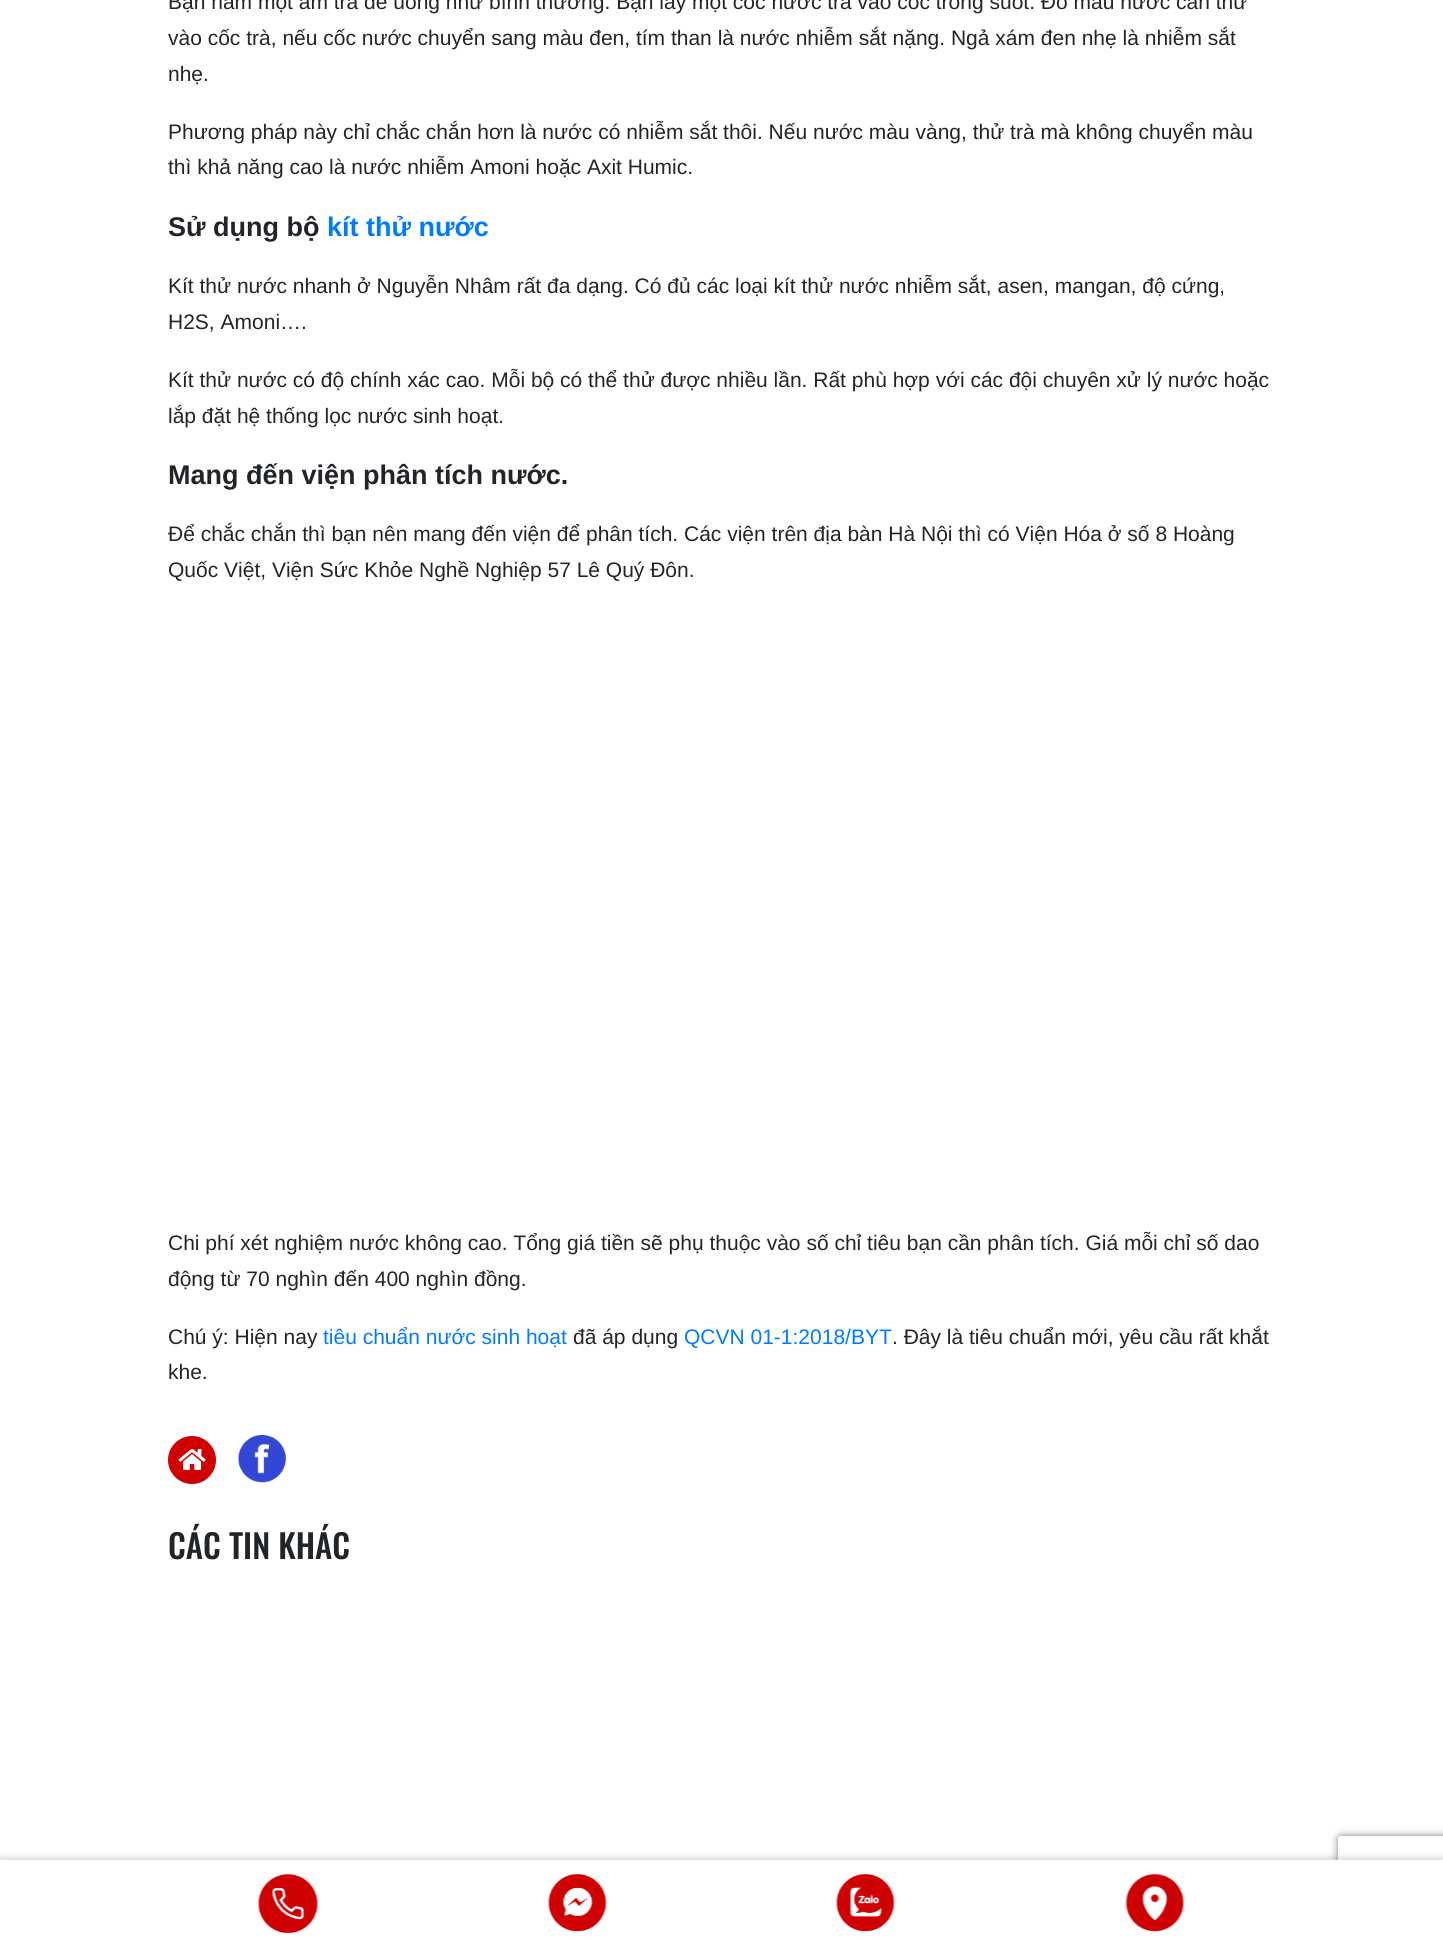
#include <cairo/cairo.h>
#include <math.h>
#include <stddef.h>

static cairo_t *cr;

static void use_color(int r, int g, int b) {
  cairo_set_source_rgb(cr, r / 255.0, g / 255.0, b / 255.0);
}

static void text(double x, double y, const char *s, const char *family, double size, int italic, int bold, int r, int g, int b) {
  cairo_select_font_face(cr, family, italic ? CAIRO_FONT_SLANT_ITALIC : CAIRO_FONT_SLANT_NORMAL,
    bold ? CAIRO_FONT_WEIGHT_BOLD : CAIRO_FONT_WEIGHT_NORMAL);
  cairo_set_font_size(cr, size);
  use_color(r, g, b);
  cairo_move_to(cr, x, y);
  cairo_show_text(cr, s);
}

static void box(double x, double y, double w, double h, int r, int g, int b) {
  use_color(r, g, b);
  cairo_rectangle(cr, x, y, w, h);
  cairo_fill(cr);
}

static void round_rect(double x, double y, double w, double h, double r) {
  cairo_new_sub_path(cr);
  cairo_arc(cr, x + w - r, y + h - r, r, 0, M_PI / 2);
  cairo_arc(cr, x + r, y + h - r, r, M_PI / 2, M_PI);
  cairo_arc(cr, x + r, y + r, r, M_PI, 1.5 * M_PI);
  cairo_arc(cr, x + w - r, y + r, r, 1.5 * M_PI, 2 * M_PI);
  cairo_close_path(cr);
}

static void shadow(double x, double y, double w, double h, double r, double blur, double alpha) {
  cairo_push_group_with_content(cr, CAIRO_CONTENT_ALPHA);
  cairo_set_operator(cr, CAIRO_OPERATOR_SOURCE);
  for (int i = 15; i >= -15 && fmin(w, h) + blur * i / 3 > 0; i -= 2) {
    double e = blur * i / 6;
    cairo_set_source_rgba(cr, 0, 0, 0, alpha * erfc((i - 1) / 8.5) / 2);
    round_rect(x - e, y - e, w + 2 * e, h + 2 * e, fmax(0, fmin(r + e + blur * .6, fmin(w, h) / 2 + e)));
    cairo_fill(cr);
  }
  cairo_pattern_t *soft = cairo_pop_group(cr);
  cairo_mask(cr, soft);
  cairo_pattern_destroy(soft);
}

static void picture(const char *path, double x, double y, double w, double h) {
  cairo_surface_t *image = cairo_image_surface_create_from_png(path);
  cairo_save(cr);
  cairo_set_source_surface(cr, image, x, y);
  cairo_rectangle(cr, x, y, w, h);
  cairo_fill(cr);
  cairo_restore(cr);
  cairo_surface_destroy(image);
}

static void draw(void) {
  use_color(255, 255, 255);
  cairo_paint(cr);
  use_color(207, 1, 2);
  cairo_arc(cr, 192, 1460, 24, 0, 2 * M_PI);
  cairo_fill(cr);
  picture("img_01.png", 178, 1449, 28, 21);
  picture("img_02.png", 238, 1435, 48, 48);
  cairo_save(cr);
  cairo_set_fill_rule(cr, CAIRO_FILL_RULE_EVEN_ODD);
  cairo_new_path(cr);
  cairo_move_to(cr, 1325, 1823);
  cairo_line_to(cr, 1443, 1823);
  cairo_line_to(cr, 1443, 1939);
  cairo_line_to(cr, 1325, 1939);
  cairo_close_path(cr);
  cairo_move_to(cr, 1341, 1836);
  cairo_line_to(cr, 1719, 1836);
  cairo_curve_to(cr, 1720.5, 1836, 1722, 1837.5, 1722, 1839);
  cairo_line_to(cr, 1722, 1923);
  cairo_curve_to(cr, 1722, 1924.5, 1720.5, 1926, 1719, 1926);
  cairo_line_to(cr, 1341, 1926);
  cairo_curve_to(cr, 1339.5, 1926, 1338, 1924.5, 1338, 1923);
  cairo_line_to(cr, 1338, 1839);
  cairo_curve_to(cr, 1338, 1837.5, 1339.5, 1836, 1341, 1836);
  cairo_close_path(cr);
  cairo_clip(cr);
  use_color(128, 128, 128);
  shadow(1338, 1836, 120, 90, 3, 4, 1);
  cairo_restore(cr);
  use_color(0, 0, 0);
  shadow(0, 1857, 1443, 87, 0, 3, 0.15);
  box(0, 1860, 1443, 86, 255, 255, 255);
  picture("img_03.png", 258, 1874, 60, 59);
  picture("img_04.png", 548, 1874, 59, 58);
  picture("img_05.png", 836, 1874, 59, 58);
  picture("img_06.png", 1125, 1873, 60, 59);
  text(168, 9, "Bạn hãm một ấm trà để uống như bình thường. Bạn lấy một cốc nước trà vào cốc trong suốt. Đổ mẫu nước cần thử", "Liberation Sans", 21, 0, 0, 33, 37, 41);
  text(168, 45, "vào cốc trà, nếu cốc nước chuyển sang màu đen, tím than là nước nhiễm sắt nặng. Ngả xám đen nhẹ là nhiễm sắt", "Liberation Sans", 21, 0, 0, 33, 37, 41);
  text(168, 81, "nhẹ.", "Liberation Sans", 21, 0, 0, 33, 37, 41);
  text(168, 139, "Phương pháp này chỉ chắc chắn hơn là nước có nhiễm sắt thôi. Nếu nước màu vàng, thử trà mà không chuyển màu", "Liberation Sans", 21, 0, 0, 33, 37, 41);
  text(168, 174, "thì khả năng cao là nước nhiễm Amoni hoặc Axit Humic.", "Liberation Sans", 21, 0, 0, 33, 37, 41);
  text(168, 236, "Sử dụng bộ", "Liberation Sans", 27, 0, 1, 33, 37, 41);
  text(327, 236, "kít thử nước", "Liberation Sans", 27, 0, 1, 0, 123, 255);
  text(168, 293, "Kít thử nước nhanh ở Nguyễn Nhâm rất đa dạng. Có đủ các loại kít thử nước nhiễm sắt, asen, mangan, độ cứng,", "Liberation Sans", 21, 0, 0, 33, 37, 41);
  text(168, 329, "H2S, Amoni….", "Liberation Sans", 21, 0, 0, 33, 37, 41);
  text(168, 387, "Kít thử nước có độ chính xác cao. Mỗi bộ có thể thử được nhiều lần. Rất phù hợp với các đội chuyên xử lý nước hoặc", "Liberation Sans", 21, 0, 0, 33, 37, 41);
  text(168, 423, "lắp đặt hệ thống lọc nước sinh hoạt.", "Liberation Sans", 21, 0, 0, 33, 37, 41);
  text(168, 484, "Mang đến viện phân tích nước.", "Liberation Sans", 27, 0, 1, 33, 37, 41);
  text(168, 541, "Để chắc chắn thì bạn nên mang đến viện để phân tích. Các viện trên địa bàn Hà Nội thì có Viện Hóa ở số 8 Hoàng", "Liberation Sans", 21, 0, 0, 33, 37, 41);
  text(168, 577, "Quốc Việt, Viện Sức Khỏe Nghề Nghiệp 57 Lê Quý Đôn.", "Liberation Sans", 21, 0, 0, 33, 37, 41);
  text(168, 1250, "Chi phí xét nghiệm nước không cao. Tổng giá tiền sẽ phụ thuộc vào số chỉ tiêu bạn cần phân tích. Giá mỗi chỉ số dao", "Liberation Sans", 21, 0, 0, 33, 37, 41);
  text(168, 1286, "động từ 70 nghìn đến 400 nghìn đồng.", "Liberation Sans", 21, 0, 0, 33, 37, 41);
  text(168, 1344, "Chú ý: Hiện nay", "Liberation Sans", 21, 0, 0, 33, 37, 41);
  text(323, 1344, "tiêu chuẩn nước sinh hoạt", "Liberation Sans", 21, 0, 0, 0, 123, 255);
  text(573, 1344, "đã áp dụng", "Liberation Sans", 21, 0, 0, 33, 37, 41);
  text(684, 1344, "QCVN 01-1:2018/BYT", "Liberation Sans", 21, 0, 0, 0, 123, 255);
  text(892, 1344, ". Đây là tiêu chuẩn mới, yêu cầu rất khắt", "Liberation Sans", 21, 0, 0, 33, 37, 41);
  text(168, 1379, "khe.", "Liberation Sans", 21, 0, 0, 33, 37, 41);
  text(168, 1559, "CÁC TIN KHÁC", "Oswald Medium", 33, 0, 0, 33, 37, 41);
}

int main(void) {
  cairo_surface_t *surface = cairo_image_surface_create(CAIRO_FORMAT_RGB24, 1443, 1946);
  cr = cairo_create(surface);
  cairo_font_options_t *options = cairo_font_options_create();
  cairo_font_options_set_hint_metrics(options, CAIRO_HINT_METRICS_OFF);
  cairo_font_options_set_hint_style(options, CAIRO_HINT_STYLE_NONE);
  cairo_set_font_options(cr, options);
  cairo_set_miter_limit(cr, 4);
  draw();
  cairo_surface_write_to_png(surface, "out.png");
  cairo_font_options_destroy(options);
  cairo_destroy(cr);
  cairo_surface_destroy(surface);
  return 0;
}
